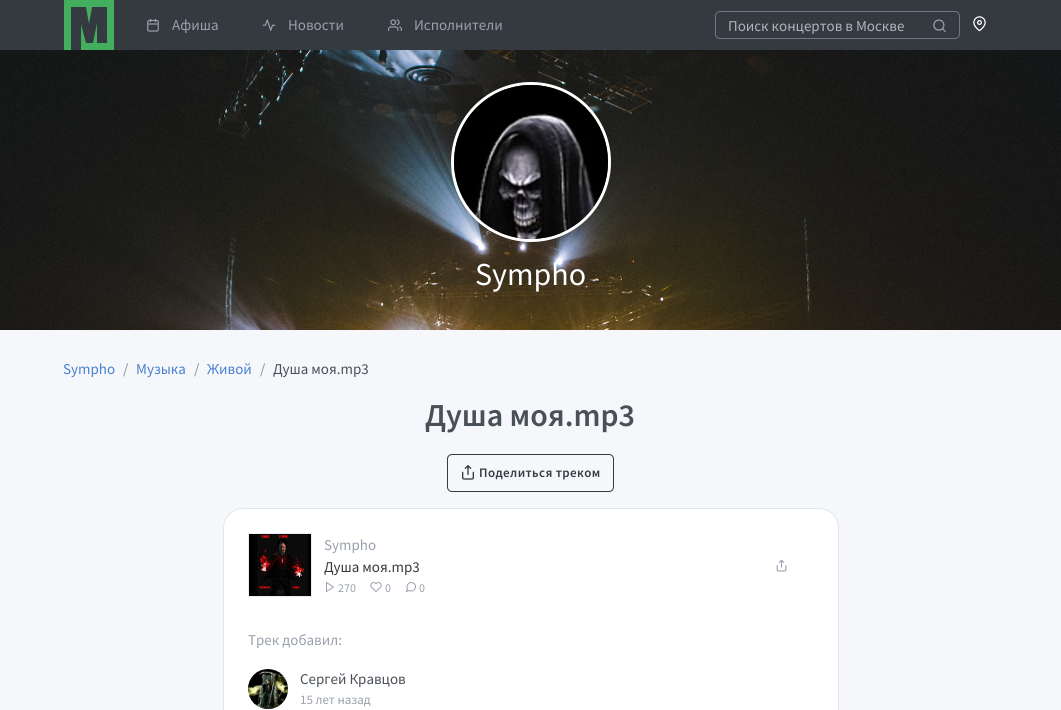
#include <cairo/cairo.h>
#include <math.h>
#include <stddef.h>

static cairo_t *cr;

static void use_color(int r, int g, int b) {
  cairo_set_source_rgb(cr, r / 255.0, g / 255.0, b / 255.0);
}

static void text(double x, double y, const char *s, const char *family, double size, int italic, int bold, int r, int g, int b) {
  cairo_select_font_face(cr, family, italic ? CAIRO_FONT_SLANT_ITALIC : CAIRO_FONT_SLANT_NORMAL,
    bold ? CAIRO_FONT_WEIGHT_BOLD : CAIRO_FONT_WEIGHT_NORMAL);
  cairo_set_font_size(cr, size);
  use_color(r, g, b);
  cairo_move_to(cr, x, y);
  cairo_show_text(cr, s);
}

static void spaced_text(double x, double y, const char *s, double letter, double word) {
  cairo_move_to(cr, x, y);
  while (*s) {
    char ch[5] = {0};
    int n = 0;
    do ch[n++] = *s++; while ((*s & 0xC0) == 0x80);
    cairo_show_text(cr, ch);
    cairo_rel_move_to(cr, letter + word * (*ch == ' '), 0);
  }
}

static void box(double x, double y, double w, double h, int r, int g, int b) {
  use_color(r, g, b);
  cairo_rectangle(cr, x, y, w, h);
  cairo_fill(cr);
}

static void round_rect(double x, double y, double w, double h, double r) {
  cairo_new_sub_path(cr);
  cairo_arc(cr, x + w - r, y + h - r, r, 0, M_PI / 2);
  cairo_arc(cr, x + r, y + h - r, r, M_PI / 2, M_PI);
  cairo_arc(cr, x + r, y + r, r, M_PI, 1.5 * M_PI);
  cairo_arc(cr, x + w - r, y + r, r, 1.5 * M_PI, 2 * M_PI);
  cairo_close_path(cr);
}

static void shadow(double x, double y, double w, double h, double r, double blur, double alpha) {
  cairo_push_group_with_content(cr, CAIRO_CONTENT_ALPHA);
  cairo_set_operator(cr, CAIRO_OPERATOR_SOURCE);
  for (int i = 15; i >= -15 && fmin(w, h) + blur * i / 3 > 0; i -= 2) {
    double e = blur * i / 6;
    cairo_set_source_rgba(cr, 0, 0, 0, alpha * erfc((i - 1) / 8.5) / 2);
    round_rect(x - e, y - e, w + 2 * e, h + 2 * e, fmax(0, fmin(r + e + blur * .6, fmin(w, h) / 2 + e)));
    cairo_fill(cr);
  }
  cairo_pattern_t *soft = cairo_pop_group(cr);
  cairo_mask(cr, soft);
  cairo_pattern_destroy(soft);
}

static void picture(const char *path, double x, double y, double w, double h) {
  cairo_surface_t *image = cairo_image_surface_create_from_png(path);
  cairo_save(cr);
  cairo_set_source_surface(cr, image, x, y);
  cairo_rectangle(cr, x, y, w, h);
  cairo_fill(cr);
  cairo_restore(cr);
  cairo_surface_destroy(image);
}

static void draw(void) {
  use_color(245, 247, 251);
  cairo_paint(cr);
  box(0, 0, 1061, 50, 52, 58, 64);
  use_color(67, 174, 94);
  cairo_new_path(cr);
  cairo_move_to(cr, 64, 0);
  cairo_line_to(cr, 114, 0);
  cairo_line_to(cr, 114, 50);
  cairo_line_to(cr, 81, 50);
  cairo_line_to(cr, 81, 24);
  cairo_line_to(cr, 86, 43);
  cairo_line_to(cr, 93, 43);
  cairo_line_to(cr, 97, 23);
  cairo_line_to(cr, 97, 43);
  cairo_line_to(cr, 107, 43);
  cairo_line_to(cr, 107, 7);
  cairo_line_to(cr, 92, 7);
  cairo_line_to(cr, 89, 24);
  cairo_line_to(cr, 86, 7);
  cairo_line_to(cr, 71, 7);
  cairo_line_to(cr, 71, 50);
  cairo_line_to(cr, 64, 50);
  cairo_close_path(cr);
  cairo_fill(cr);
  picture("img_01.png", 147, 18, 12, 14);
  picture("img_02.png", 262, 19, 14, 12);
  picture("img_03.png", 388, 19, 14, 12);
  round_rect(715.5, 11.5, 244, 27, 4.5);
  use_color(110, 118, 135);
  cairo_set_line_width(cr, 1);
  cairo_stroke(cr);
  picture("img_04.png", 933, 19, 13, 13);
  picture("img_05.png", 973, 16, 13, 16);
  picture("img_06.png", 0, 50, 1061, 280);
  use_color(0, 0, 0);
  shadow(451, 83, 160, 160, 80, 0.5, 0.1);
  cairo_arc(cr, 531, 162, 78.5, 0, 2 * M_PI);
  use_color(255, 255, 255);
  cairo_set_line_width(cr, 3);
  cairo_stroke(cr);
  picture("img_07.png", 454, 85, 154, 154);
  round_rect(447.5, 454.5, 166, 37, 4.5);
  use_color(52, 58, 64);
  cairo_set_line_width(cr, 1);
  cairo_stroke(cr);
  picture("img_08.png", 462, 465, 12, 15);
  use_color(255, 255, 255);
  round_rect(223, 508, 616, 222, 20);
  cairo_fill(cr);
  round_rect(223.5, 508.5, 615, 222, 19.5);
  cairo_set_source_rgba(cr, 0, 0.157, 0.392, 0.12);
  cairo_stroke(cr);
  box(248, 533, 64, 64, 230, 239, 245);
  picture("img_09.png", 249, 534, 62, 62);
  picture("img_10.png", 326, 582, 8, 10);
  picture("img_11.png", 370, 582, 12, 10);
  picture("img_12.png", 406, 582, 10, 10);
  picture("img_13.png", 776, 559, 11, 13);
  use_color(206, 212, 218);
  cairo_arc(cr, 268, 689, 20, 0, 2 * M_PI);
  cairo_fill(cr);
  picture("img_14.png", 248, 669, 40, 40);
  text(172, 30, "Афиша", "Source Sans Pro", 15, 0, 0, 154, 160, 172);
  text(288, 30, "Новости", "Source Sans Pro", 15, 0, 0, 154, 160, 172);
  text(414, 30, "Исполнители", "Source Sans Pro", 15, 0, 0, 154, 160, 172);
  text(728, 31, "Поиск концертов в Москве", "Source Sans Pro", 15, 0, 0, 173, 181, 189);
  text(475, 285, "Sympho", "Source Sans Pro", 32, 0, 0, 255, 255, 255);
  text(63, 374, "Sympho", "Source Sans Pro", 15, 0, 0, 70, 127, 207);
  text(123, 374, "/", "Source Sans Pro", 15, 0, 0, 134, 142, 150);
  text(136, 374, "Музыка", "Source Sans Pro", 15, 0, 0, 70, 127, 207);
  text(194, 374, "/", "Source Sans Pro", 15, 0, 0, 134, 142, 150);
  text(207, 374, "Живой", "Source Sans Pro", 15, 0, 0, 70, 127, 207);
  text(260, 374, "/", "Source Sans Pro", 15, 0, 0, 134, 142, 150);
  text(273, 374, "Душа моя.mp3", "Source Sans Pro", 15, 0, 0, 73, 80, 87);
  text(425, 426, "Душа моя.mp3", "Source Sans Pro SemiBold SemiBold", 32, 0, 0, 73, 80, 87);
  cairo_set_font_size(cr, 13);
  use_color(52, 58, 64);
  spaced_text(479, 477, "Поделиться треком", 0.4, 0);
  text(324, 550, "Sympho", "Source Sans Pro", 15, 0, 0, 154, 160, 172);
  text(324, 572, "Душа моя.mp3", "Source Sans Pro", 15, 0, 0, 52, 58, 64);
  text(338, 592, "270", "Source Sans Pro", 12, 0, 0, 154, 160, 172);
  text(385, 592, "0", "Source Sans Pro", 12, 0, 0, 154, 160, 172);
  text(419, 592, "0", "Source Sans Pro", 12, 0, 0, 154, 160, 172);
  text(248, 645, "Трек добавил:", "Source Sans Pro", 15, 0, 0, 154, 160, 172);
  text(300, 684, "Сергей Кравцов", "Source Sans Pro", 15, 0, 0, 73, 80, 87);
  text(300, 704, "15 лет назад", "Source Sans Pro", 13, 0, 0, 154, 160, 172);
}

int main(void) {
  cairo_surface_t *surface = cairo_image_surface_create(CAIRO_FORMAT_RGB24, 1061, 710);
  cr = cairo_create(surface);
  cairo_font_options_t *options = cairo_font_options_create();
  cairo_font_options_set_hint_metrics(options, CAIRO_HINT_METRICS_OFF);
  cairo_font_options_set_hint_style(options, CAIRO_HINT_STYLE_NONE);
  cairo_set_font_options(cr, options);
  cairo_set_miter_limit(cr, 4);
  draw();
  cairo_surface_write_to_png(surface, "out.png");
  cairo_font_options_destroy(options);
  cairo_destroy(cr);
  cairo_surface_destroy(surface);
  return 0;
}
